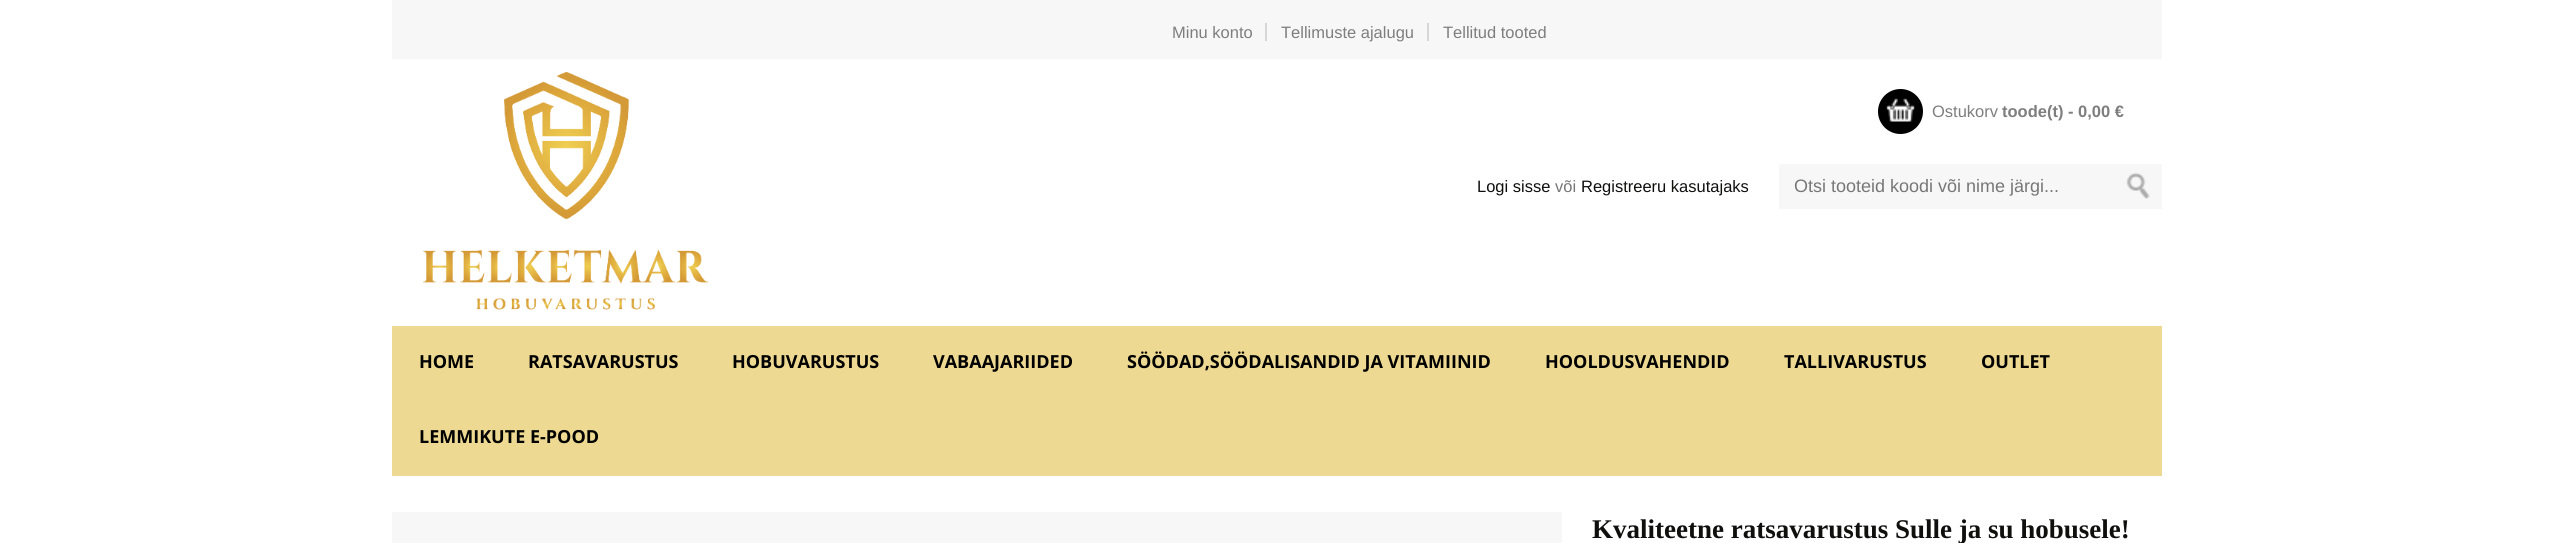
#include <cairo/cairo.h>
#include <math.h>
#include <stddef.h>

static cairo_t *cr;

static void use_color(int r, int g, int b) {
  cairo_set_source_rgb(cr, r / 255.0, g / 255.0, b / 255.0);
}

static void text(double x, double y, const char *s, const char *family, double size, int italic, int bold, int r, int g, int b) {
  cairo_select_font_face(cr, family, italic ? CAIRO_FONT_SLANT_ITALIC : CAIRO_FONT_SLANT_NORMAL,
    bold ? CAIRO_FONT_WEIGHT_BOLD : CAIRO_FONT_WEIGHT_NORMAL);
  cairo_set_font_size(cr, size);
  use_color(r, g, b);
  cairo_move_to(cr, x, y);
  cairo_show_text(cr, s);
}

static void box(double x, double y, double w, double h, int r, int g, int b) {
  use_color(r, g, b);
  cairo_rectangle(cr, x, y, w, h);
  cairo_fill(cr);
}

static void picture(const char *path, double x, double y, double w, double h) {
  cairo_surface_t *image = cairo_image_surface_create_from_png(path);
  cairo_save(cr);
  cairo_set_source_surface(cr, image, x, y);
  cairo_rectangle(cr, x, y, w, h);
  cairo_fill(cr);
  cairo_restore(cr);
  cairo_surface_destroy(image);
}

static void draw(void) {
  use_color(255, 255, 255);
  cairo_paint(cr);
  box(392, 0, 1770, 59, 247, 247, 247);
  box(1265, 23, 2, 18, 215, 215, 215);
  box(1427, 23, 2, 18, 215, 215, 215);
  picture("img_01.png", 423, 72, 286, 238);
  use_color(0, 0, 0);
  cairo_arc(cr, 1900.5, 111.5, 22.5, 0, 2 * M_PI);
  cairo_fill(cr);
  picture("img_02.png", 1886, 98, 29, 24);
  box(1779, 164, 383, 45, 247, 247, 247);
  picture("img_03.png", 2126, 172, 24, 27);
  box(392, 326, 1770, 150, 237, 217, 145);
  box(392, 512, 1170, 31, 247, 247, 247);
  text(1172, 38, "Minu konto", "Liberation Sans", 16.5, 0, 0, 126, 126, 126);
  text(1281, 38, "Tellimuste ajalugu", "Liberation Sans", 16.5, 0, 0, 126, 126, 126);
  text(1443, 38, "Tellitud tooted", "Liberation Sans", 16.5, 0, 0, 126, 126, 126);
  text(1932, 117, "Ostukorv", "Liberation Sans", 16.5, 0, 0, 126, 126, 126);
  text(2002, 117, "toode(t) - 0,00 €", "Liberation Sans", 16.5, 0, 1, 126, 126, 126);
  text(1477, 192, "Logi sisse", "Liberation Sans", 16.5, 0, 0, 15, 15, 14);
  text(1555, 192, "või", "Liberation Sans", 16.5, 0, 0, 119, 119, 119);
  text(1581, 192, "Registreeru kasutajaks", "Liberation Sans", 16.5, 0, 0, 15, 15, 14);
  text(1794, 192, "Otsi tooteid koodi või nime järgi...", "Liberation Sans", 18, 0, 0, 119, 119, 119);
  text(419, 368, "HOME", "Open Sans", 18, 0, 1, 1, 1, 0);
  text(528, 368, "RATSAVARUSTUS", "Open Sans", 18, 0, 1, 1, 1, 0);
  text(732, 368, "HOBUVARUSTUS", "Open Sans", 18, 0, 1, 1, 1, 0);
  text(933, 368, "VABAAJARIIDED", "Open Sans", 18, 0, 1, 1, 1, 0);
  text(1127, 368, "SÖÖDAD,SÖÖDALISANDID JA VITAMIINID", "Open Sans", 18, 0, 1, 1, 1, 0);
  text(1545, 368, "HOOLDUSVAHENDID", "Open Sans", 18, 0, 1, 1, 1, 0);
  text(1784, 368, "TALLIVARUSTUS", "Open Sans", 18, 0, 1, 1, 1, 0);
  text(1981, 368, "OUTLET", "Open Sans", 18, 0, 1, 1, 1, 0);
  text(419, 443, "LEMMIKUTE E-POOD", "Open Sans", 18, 0, 1, 1, 1, 0);
  text(1592, 538, "Kvaliteetne ratsavarustus Sulle ja su hobusele!", "Liberation Serif", 27, 0, 1, 15, 15, 14);
}

int main(void) {
  cairo_surface_t *surface = cairo_image_surface_create(CAIRO_FORMAT_RGB24, 2552, 543);
  cr = cairo_create(surface);
  cairo_font_options_t *options = cairo_font_options_create();
  cairo_font_options_set_hint_metrics(options, CAIRO_HINT_METRICS_OFF);
  cairo_font_options_set_hint_style(options, CAIRO_HINT_STYLE_NONE);
  cairo_set_font_options(cr, options);
  cairo_set_miter_limit(cr, 4);
  draw();
  cairo_surface_write_to_png(surface, "out.png");
  cairo_font_options_destroy(options);
  cairo_destroy(cr);
  cairo_surface_destroy(surface);
  return 0;
}
